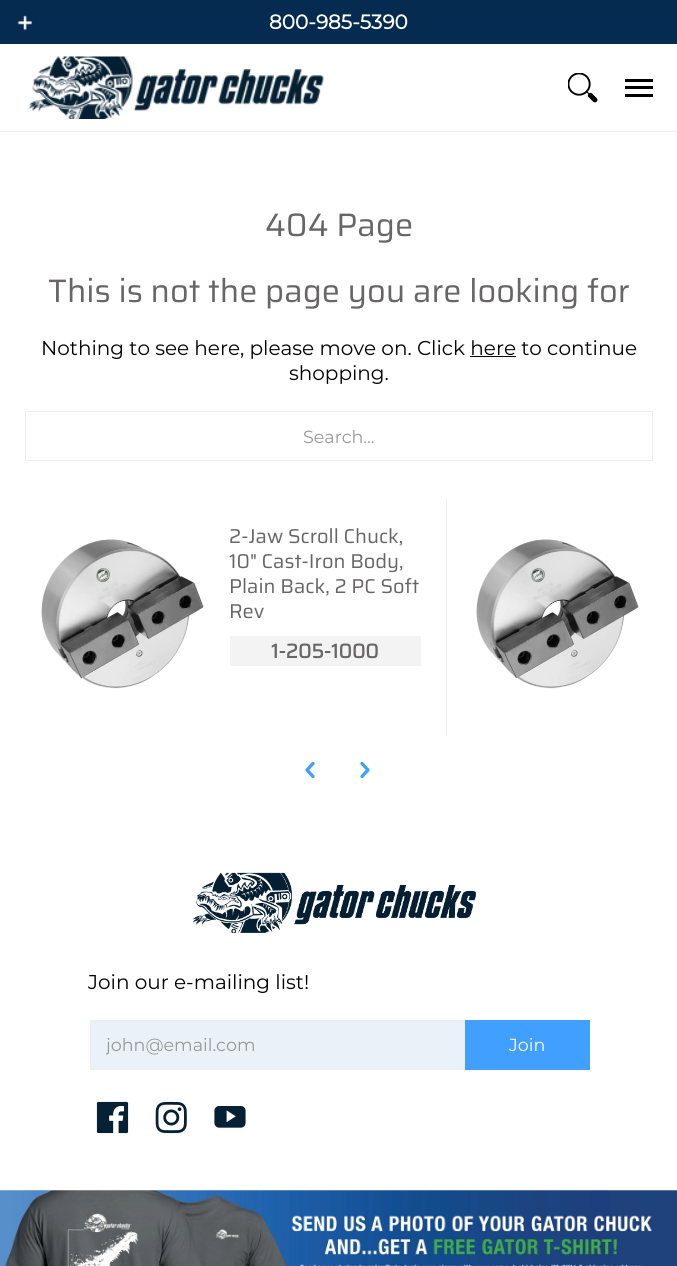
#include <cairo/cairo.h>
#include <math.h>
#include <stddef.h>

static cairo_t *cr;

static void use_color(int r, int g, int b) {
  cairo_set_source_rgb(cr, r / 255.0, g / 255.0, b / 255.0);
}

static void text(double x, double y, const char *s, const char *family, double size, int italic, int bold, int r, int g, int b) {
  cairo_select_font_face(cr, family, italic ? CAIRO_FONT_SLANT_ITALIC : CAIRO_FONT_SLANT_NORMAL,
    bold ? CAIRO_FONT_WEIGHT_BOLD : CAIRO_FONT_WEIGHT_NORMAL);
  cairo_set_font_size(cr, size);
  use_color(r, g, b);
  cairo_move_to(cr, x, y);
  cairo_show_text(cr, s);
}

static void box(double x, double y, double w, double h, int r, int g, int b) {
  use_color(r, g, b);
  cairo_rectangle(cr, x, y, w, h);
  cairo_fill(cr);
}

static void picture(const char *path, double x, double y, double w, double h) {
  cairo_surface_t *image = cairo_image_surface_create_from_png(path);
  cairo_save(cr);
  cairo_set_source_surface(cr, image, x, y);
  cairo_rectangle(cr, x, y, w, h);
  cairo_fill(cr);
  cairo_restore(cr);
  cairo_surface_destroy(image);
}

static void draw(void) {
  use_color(255, 255, 255);
  cairo_paint(cr);
  box(0, 0, 677, 44, 5, 43, 80);
  picture("img_01.png", 17, 15, 16, 16);
  box(0, 131, 677, 1, 235, 239, 243);
  picture("img_02.png", 28, 56, 296, 63);
  picture("img_03.png", 568, 73, 30, 30);
  box(625, 79, 28, 3, 0, 0, 0);
  box(625, 94, 28, 3, 0, 0, 0);
  box(625, 86, 28, 3, 0, 0, 0);
  box(470, 356, 46, 1, 0, 0, 0);
  cairo_rectangle(cr, 25.5, 411.5, 627, 49);
  use_color(235, 239, 243);
  cairo_set_line_width(cr, 1);
  cairo_stroke(cr);
  box(446, 499, 1, 236, 235, 239, 243);
  picture("img_04.png", 41, 539, 163, 150);
  box(230, 636, 191, 30, 243, 243, 243);
  picture("img_04.png", 476, 539, 163, 150);
  cairo_new_path(cr);
  cairo_move_to(cr, 313, 763.5);
  cairo_line_to(cr, 307, 770);
  cairo_line_to(cr, 313, 776.5);
  use_color(65, 159, 255);
  cairo_set_line_width(cr, 3.3);
  cairo_set_line_cap(cr, CAIRO_LINE_CAP_ROUND);
  cairo_set_line_join(cr, CAIRO_LINE_JOIN_ROUND);
  cairo_stroke(cr);
  cairo_new_path(cr);
  cairo_move_to(cr, 362, 776.5);
  cairo_line_to(cr, 368, 770);
  cairo_line_to(cr, 362, 763.5);
  cairo_stroke(cr);
  picture("img_05.png", 193, 872, 284, 61);
  box(91, 1021, 374, 48, 235, 241, 248);
  cairo_rectangle(cr, 90.5, 1020.5, 377, 49);
  use_color(235, 239, 243);
  cairo_set_line_width(cr, 1);
  cairo_set_line_cap(cr, CAIRO_LINE_CAP_BUTT);
  cairo_set_line_join(cr, CAIRO_LINE_JOIN_MITER);
  cairo_stroke(cr);
  box(465, 1020, 125, 50, 65, 159, 255);
  picture("img_06.png", 96, 1101, 33, 33);
  picture("img_07.png", 155, 1101, 32, 33);
  picture("img_08.png", 214, 1106, 32, 22);
  picture("img_09.png", 0, 1190, 677, 76);
  text(269, 29, "800-985-5390", "Montserrat", 20, 0, 1, 255, 255, 255);
  text(265, 236, "404 Page", "Saira", 32.5, 0, 0, 103, 101, 101);
  text(48, 302, "This is not the page you are looking for", "Saira", 32.5, 0, 0, 103, 101, 101);
  text(41, 355, "Nothing to see here, please move on. Click here to continue", "Montserrat", 20, 0, 0, 0, 0, 0);
  text(289, 380, "shopping.", "Montserrat", 20, 0, 0, 0, 0, 0);
  text(303, 443, "Search...", "Montserrat", 17.5, 0, 0, 152, 152, 152);
  text(229, 543, "2-Jaw Scroll Chuck,", "Saira", 20, 0, 0, 103, 101, 101);
  text(229, 568, "10\" Cast-Iron Body,", "Saira", 20, 0, 0, 103, 101, 101);
  text(229, 593, "Plain Back, 2 PC Soft", "Saira", 20, 0, 0, 103, 101, 101);
  text(229, 618, "Rev", "Saira", 20, 0, 0, 103, 101, 101);
  text(271, 658, "1-205-1000", "Saira", 20, 0, 1, 103, 101, 101);
  text(88, 989, "Join our e-mailing list!", "Montserrat", 20, 0, 0, 0, 0, 0);
  cairo_save(cr);
  cairo_rectangle(cr, 106, 1034, 345, 22);
  cairo_clip(cr);
  text(106, 1051, "john@email.com", "Montserrat", 17.5, 0, 0, 152, 152, 152);
  cairo_restore(cr);
  text(509, 1051, "Join", "Montserrat", 17.5, 0, 0, 255, 255, 255);
}

int main(void) {
  cairo_surface_t *surface = cairo_image_surface_create(CAIRO_FORMAT_RGB24, 677, 1266);
  cr = cairo_create(surface);
  cairo_font_options_t *options = cairo_font_options_create();
  cairo_font_options_set_hint_metrics(options, CAIRO_HINT_METRICS_OFF);
  cairo_font_options_set_hint_style(options, CAIRO_HINT_STYLE_NONE);
  cairo_set_font_options(cr, options);
  cairo_set_miter_limit(cr, 4);
  draw();
  cairo_surface_write_to_png(surface, "out.png");
  cairo_font_options_destroy(options);
  cairo_destroy(cr);
  cairo_surface_destroy(surface);
  return 0;
}
